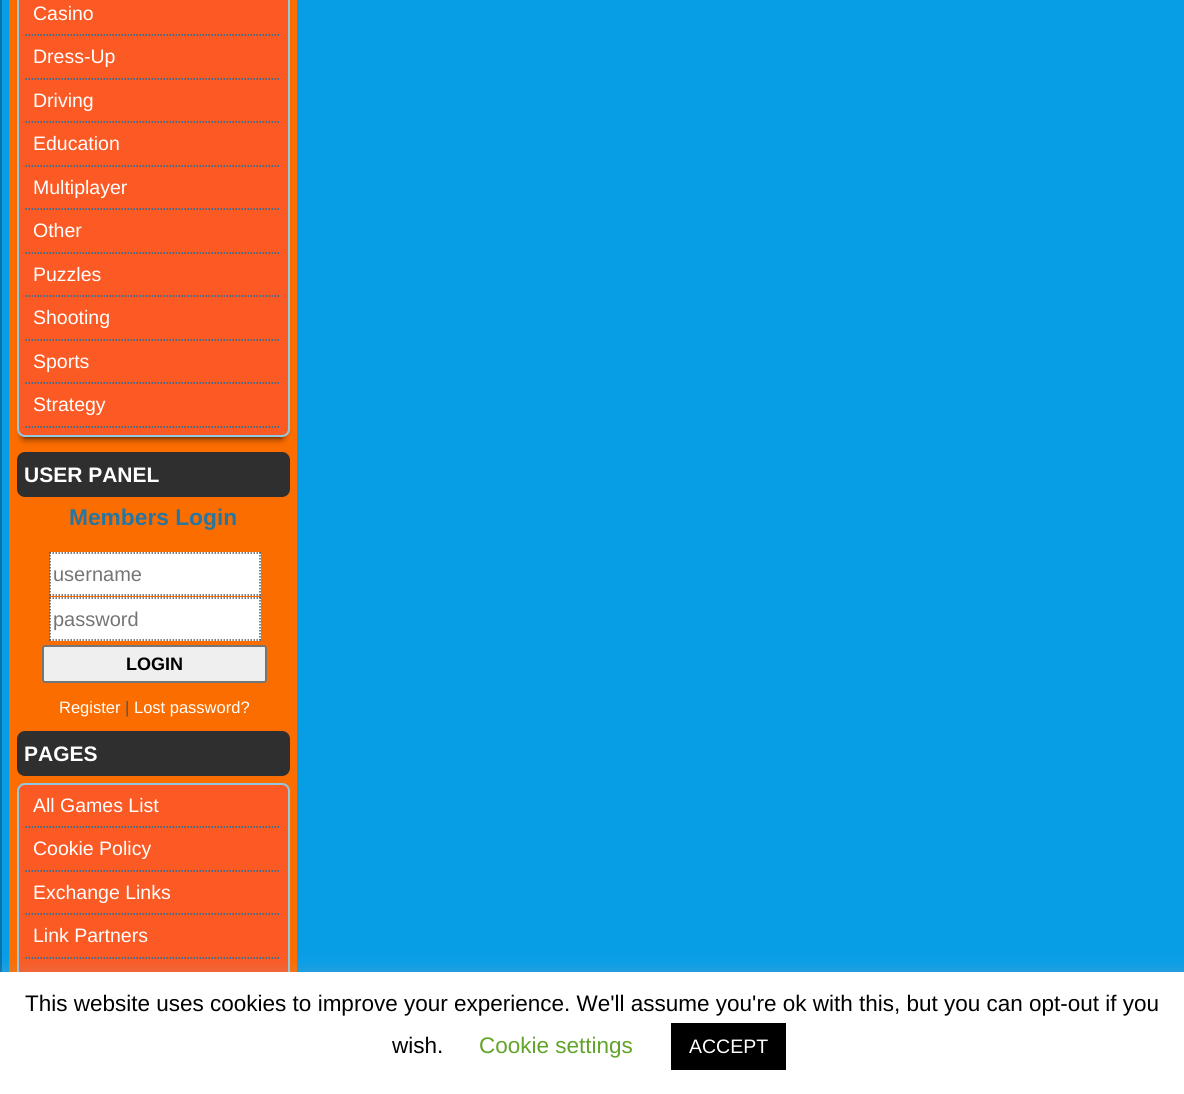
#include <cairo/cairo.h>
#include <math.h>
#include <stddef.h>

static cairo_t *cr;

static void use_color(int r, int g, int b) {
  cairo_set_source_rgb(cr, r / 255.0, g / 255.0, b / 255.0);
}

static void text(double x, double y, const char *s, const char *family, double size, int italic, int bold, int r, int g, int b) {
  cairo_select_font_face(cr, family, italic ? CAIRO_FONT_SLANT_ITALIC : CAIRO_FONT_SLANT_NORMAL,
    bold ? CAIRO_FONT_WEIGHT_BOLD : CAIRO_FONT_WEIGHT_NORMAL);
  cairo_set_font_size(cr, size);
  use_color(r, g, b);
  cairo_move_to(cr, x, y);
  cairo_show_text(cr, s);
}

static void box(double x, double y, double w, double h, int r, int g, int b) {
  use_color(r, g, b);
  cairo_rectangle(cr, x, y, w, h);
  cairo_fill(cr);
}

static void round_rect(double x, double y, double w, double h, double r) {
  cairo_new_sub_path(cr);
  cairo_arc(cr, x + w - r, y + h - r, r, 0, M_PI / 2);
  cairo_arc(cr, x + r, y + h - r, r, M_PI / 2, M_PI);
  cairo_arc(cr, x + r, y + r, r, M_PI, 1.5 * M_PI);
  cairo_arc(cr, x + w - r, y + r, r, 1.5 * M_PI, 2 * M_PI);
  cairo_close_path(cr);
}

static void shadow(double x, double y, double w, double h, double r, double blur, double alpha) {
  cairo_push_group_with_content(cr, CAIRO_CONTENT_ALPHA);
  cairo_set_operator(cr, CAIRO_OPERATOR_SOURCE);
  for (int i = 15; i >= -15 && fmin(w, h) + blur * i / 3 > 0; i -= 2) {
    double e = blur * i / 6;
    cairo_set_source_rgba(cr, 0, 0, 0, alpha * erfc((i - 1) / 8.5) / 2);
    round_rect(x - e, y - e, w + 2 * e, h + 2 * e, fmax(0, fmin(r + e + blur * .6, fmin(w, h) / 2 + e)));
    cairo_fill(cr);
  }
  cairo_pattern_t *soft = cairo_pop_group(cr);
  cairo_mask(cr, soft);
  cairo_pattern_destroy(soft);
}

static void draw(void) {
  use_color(5, 114, 171);
  cairo_paint(cr);
  box(2, 0, 1182, 972, 8, 158, 230);
  box(9, 0, 288, 972, 252, 109, 0);
  use_color(0, 0, 0);
  shadow(24, -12, 258, 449, 0, 4, 1);
  use_color(251, 90, 37);
  round_rect(18, -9, 271, 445, 7);
  cairo_fill_preserve(cr);
  use_color(148, 200, 223);
  cairo_stroke(cr);
  cairo_new_path(cr);
  cairo_move_to(cr, 25.5, 35);
  cairo_line_to(cr, 280.5, 35);
  use_color(5, 114, 171);
  cairo_set_line_width(cr, 1.5);
  cairo_set_dash(cr, (double[]){1.5, 1.5}, 2, 0);
  cairo_stroke(cr);
  cairo_new_path(cr);
  cairo_move_to(cr, 25.5, 79);
  cairo_line_to(cr, 280.5, 79);
  cairo_stroke(cr);
  cairo_new_path(cr);
  cairo_move_to(cr, 25.5, 122);
  cairo_line_to(cr, 280.5, 122);
  cairo_stroke(cr);
  cairo_new_path(cr);
  cairo_move_to(cr, 25.5, 166);
  cairo_line_to(cr, 280.5, 166);
  cairo_stroke(cr);
  cairo_new_path(cr);
  cairo_move_to(cr, 25.5, 209);
  cairo_line_to(cr, 280.5, 209);
  cairo_stroke(cr);
  cairo_new_path(cr);
  cairo_move_to(cr, 25.5, 253);
  cairo_line_to(cr, 280.5, 253);
  cairo_stroke(cr);
  cairo_new_path(cr);
  cairo_move_to(cr, 25.5, 296);
  cairo_line_to(cr, 280.5, 296);
  cairo_stroke(cr);
  cairo_new_path(cr);
  cairo_move_to(cr, 25.5, 340);
  cairo_line_to(cr, 280.5, 340);
  cairo_stroke(cr);
  cairo_new_path(cr);
  cairo_move_to(cr, 25.5, 383);
  cairo_line_to(cr, 280.5, 383);
  cairo_stroke(cr);
  cairo_new_path(cr);
  cairo_move_to(cr, 25.5, 427);
  cairo_line_to(cr, 280.5, 427);
  cairo_stroke(cr);
  use_color(47, 47, 47);
  round_rect(17, 452, 273, 45, 8);
  cairo_fill(cr);
  box(50, 552, 211, 44, 255, 255, 255);
  cairo_new_path(cr);
  cairo_move_to(cr, 49.5, 553);
  cairo_line_to(cr, 261, 553);
  use_color(85, 85, 85);
  cairo_stroke(cr);
  cairo_new_path(cr);
  cairo_move_to(cr, 260, 552);
  cairo_line_to(cr, 260, 595.5);
  cairo_stroke(cr);
  cairo_new_path(cr);
  cairo_move_to(cr, 49.5, 595);
  cairo_line_to(cr, 261, 595);
  cairo_stroke(cr);
  cairo_new_path(cr);
  cairo_move_to(cr, 50, 552);
  cairo_line_to(cr, 50, 595.5);
  cairo_stroke(cr);
  box(50, 597, 211, 44, 255, 255, 255);
  cairo_new_path(cr);
  cairo_move_to(cr, 49.5, 598);
  cairo_line_to(cr, 261, 598);
  use_color(85, 85, 85);
  cairo_stroke(cr);
  cairo_new_path(cr);
  cairo_move_to(cr, 260, 597);
  cairo_line_to(cr, 260, 640.5);
  cairo_stroke(cr);
  cairo_new_path(cr);
  cairo_move_to(cr, 49.5, 640);
  cairo_line_to(cr, 261, 640);
  cairo_stroke(cr);
  cairo_new_path(cr);
  cairo_move_to(cr, 50, 597);
  cairo_line_to(cr, 50, 640.5);
  cairo_stroke(cr);
  use_color(239, 239, 239);
  round_rect(43, 646, 223, 36, 2);
  cairo_fill_preserve(cr);
  use_color(118, 118, 118);
  cairo_set_line_width(cr, 2);
  cairo_set_dash(cr, NULL, 0, 0);
  cairo_stroke(cr);
  use_color(47, 47, 47);
  round_rect(17, 731, 273, 45, 8);
  cairo_fill(cr);
  use_color(251, 90, 37);
  round_rect(18, 784, 271, 226, 7);
  cairo_fill_preserve(cr);
  use_color(148, 200, 223);
  cairo_stroke(cr);
  cairo_new_path(cr);
  cairo_move_to(cr, 25.5, 827);
  cairo_line_to(cr, 280.5, 827);
  use_color(5, 114, 171);
  cairo_set_line_width(cr, 1.5);
  cairo_set_dash(cr, (double[]){1.5, 1.5}, 2, 0);
  cairo_stroke(cr);
  cairo_new_path(cr);
  cairo_move_to(cr, 25.5, 871);
  cairo_line_to(cr, 280.5, 871);
  cairo_stroke(cr);
  cairo_new_path(cr);
  cairo_move_to(cr, 25.5, 914);
  cairo_line_to(cr, 280.5, 914);
  cairo_stroke(cr);
  cairo_new_path(cr);
  cairo_move_to(cr, 25.5, 958);
  cairo_line_to(cr, 280.5, 958);
  cairo_stroke(cr);
  use_color(172, 171, 171);
  shadow(0, 971, 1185, 123, 0, 7.5, 0.3);
  box(0, 972, 1184, 122, 255, 255, 255);
  box(671, 1023, 115, 47, 0, 0, 0);
  text(33, 20, "Casino", "Liberation Sans", 19.5, 0, 0, 255, 255, 255);
  text(33, 63, "Dress-Up", "Liberation Sans", 19.5, 0, 0, 255, 255, 255);
  text(33, 107, "Driving", "Liberation Sans", 19.5, 0, 0, 255, 255, 255);
  text(33, 150, "Education", "Liberation Sans", 19.5, 0, 0, 255, 255, 255);
  text(33, 194, "Multiplayer", "Liberation Sans", 19.5, 0, 0, 255, 255, 255);
  text(33, 237, "Other", "Liberation Sans", 19.5, 0, 0, 255, 255, 255);
  text(33, 281, "Puzzles", "Liberation Sans", 19.5, 0, 0, 255, 255, 255);
  text(33, 324, "Shooting", "Liberation Sans", 19.5, 0, 0, 255, 255, 255);
  text(33, 368, "Sports", "Liberation Sans", 19.5, 0, 0, 255, 255, 255);
  text(33, 411, "Strategy", "Liberation Sans", 19.5, 0, 0, 255, 255, 255);
  text(24, 482, "USER PANEL", "Liberation Sans", 21, 0, 1, 255, 255, 255);
  text(69, 525, "Members Login", "Liberation Sans", 22.75, 0, 1, 38, 118, 161);
  text(53, 581, "username", "Liberation Sans", 20, 0, 0, 117, 117, 117);
  text(53, 626, "password", "Liberation Sans", 20, 0, 0, 117, 117, 117);
  text(126, 670, "LOGIN", "Liberation Sans", 18, 0, 1, 0, 0, 0);
  text(59, 713, "Register", "Liberation Sans", 16.5, 0, 0, 255, 255, 255);
  text(125, 713, "|", "Liberation Sans", 16.5, 0, 0, 83, 83, 83);
  text(134, 713, "Lost password?", "Liberation Sans", 16.5, 0, 0, 255, 255, 255);
  text(24, 761, "PAGES", "Liberation Sans", 21, 0, 1, 255, 255, 255);
  text(33, 812, "All Games List", "Liberation Sans", 19.5, 0, 0, 255, 255, 255);
  text(33, 855, "Cookie Policy", "Liberation Sans", 19.5, 0, 0, 255, 255, 255);
  text(33, 899, "Exchange Links", "Liberation Sans", 19.5, 0, 0, 255, 255, 255);
  text(33, 942, "Link Partners", "Liberation Sans", 19.5, 0, 0, 255, 255, 255);
  text(25, 1011, "This website uses cookies to improve your experience. We'll assume you're ok with this, but you can opt-out if you", "Liberation Sans", 22.5, 0, 0, 0, 0, 0);
  text(392, 1053, "wish.", "Liberation Sans", 22.5, 0, 0, 0, 0, 0);
  text(479, 1053, "Cookie settings", "Liberation Sans", 22.5, 0, 0, 98, 163, 41);
  text(689, 1053, "ACCEPT", "Liberation Sans", 19.5, 0, 0, 255, 255, 255);
}

int main(void) {
  cairo_surface_t *surface = cairo_image_surface_create(CAIRO_FORMAT_RGB24, 1184, 1094);
  cr = cairo_create(surface);
  cairo_font_options_t *options = cairo_font_options_create();
  cairo_font_options_set_hint_metrics(options, CAIRO_HINT_METRICS_OFF);
  cairo_font_options_set_hint_style(options, CAIRO_HINT_STYLE_NONE);
  cairo_set_font_options(cr, options);
  cairo_set_miter_limit(cr, 4);
  draw();
  cairo_surface_write_to_png(surface, "out.png");
  cairo_font_options_destroy(options);
  cairo_destroy(cr);
  cairo_surface_destroy(surface);
  return 0;
}
